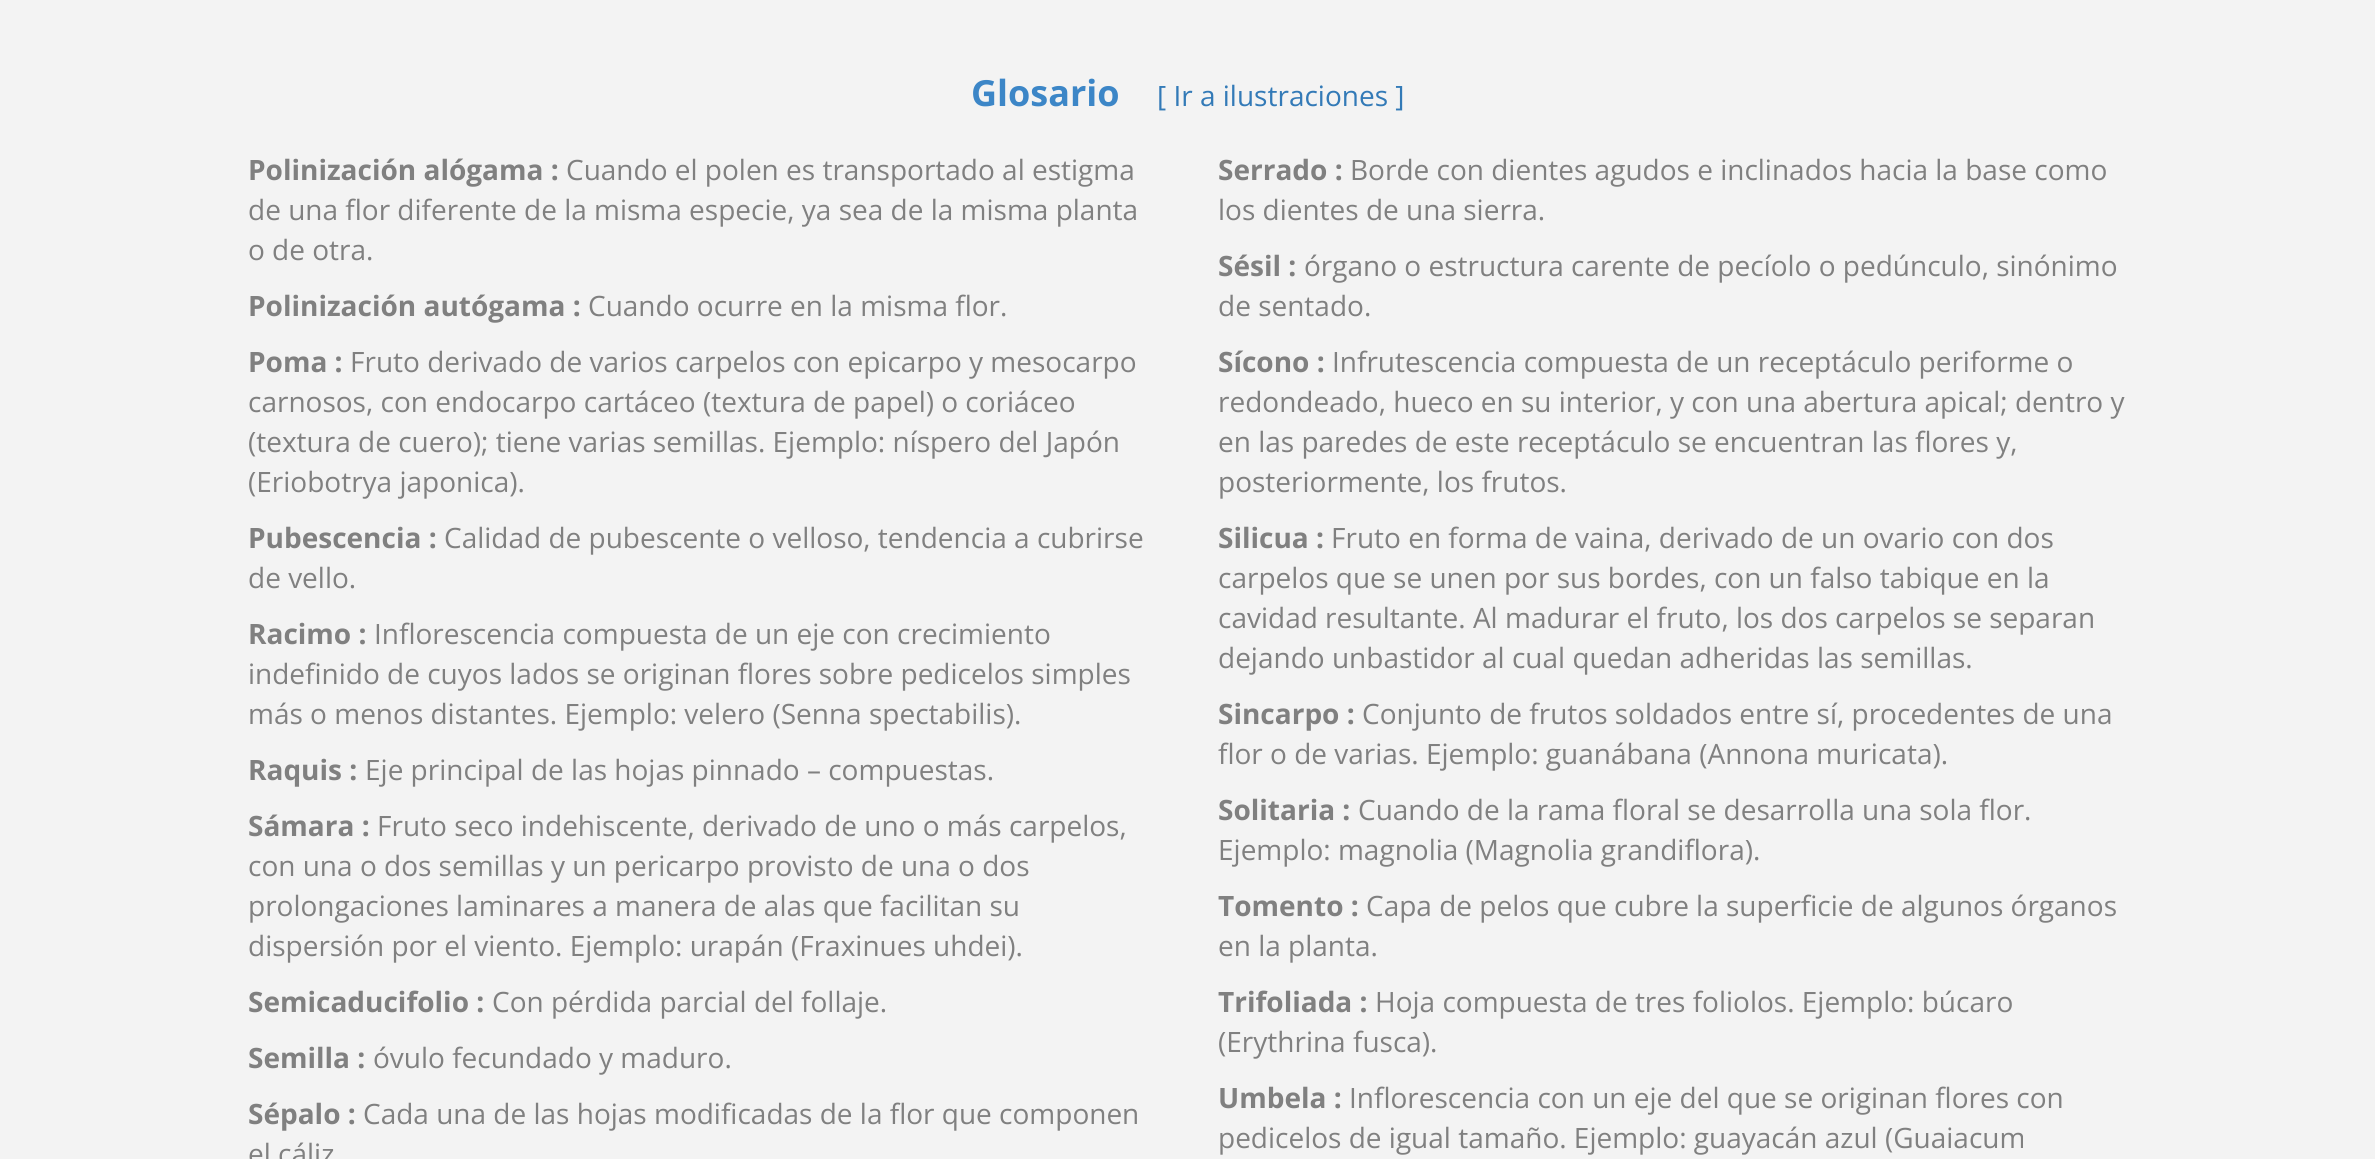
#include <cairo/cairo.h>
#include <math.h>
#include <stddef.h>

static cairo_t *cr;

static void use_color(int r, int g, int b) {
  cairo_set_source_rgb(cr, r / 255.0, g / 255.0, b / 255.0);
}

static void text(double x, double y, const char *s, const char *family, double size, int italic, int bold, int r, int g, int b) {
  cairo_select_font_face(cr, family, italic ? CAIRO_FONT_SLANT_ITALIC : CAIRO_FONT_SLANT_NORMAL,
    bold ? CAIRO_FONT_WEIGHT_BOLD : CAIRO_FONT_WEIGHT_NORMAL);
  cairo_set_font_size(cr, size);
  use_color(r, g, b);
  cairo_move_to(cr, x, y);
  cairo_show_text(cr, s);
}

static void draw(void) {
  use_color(243, 243, 243);
  cairo_paint(cr);
  text(971, 106, "Glosario", "Open Sans", 36, 0, 1, 60, 134, 199);
  text(1157, 106, "[ Ir a ilustraciones ]", "Open Sans", 28, 0, 0, 51, 122, 183);
  text(248, 180, "Polinización alógama :", "Open Sans", 28, 0, 1, 128, 128, 128);
  text(566, 180, "Cuando el polen es transportado al estigma", "Open Sans", 28, 0, 0, 128, 128, 128);
  text(248, 220, "de una flor diferente de la misma especie, ya sea de la misma planta", "Open Sans", 28, 0, 0, 128, 128, 128);
  text(248, 260, "o de otra.", "Open Sans", 28, 0, 0, 128, 128, 128);
  text(248, 316, "Polinización autógama :", "Open Sans", 28, 0, 1, 128, 128, 128);
  text(588, 316, "Cuando ocurre en la misma flor.", "Open Sans", 28, 0, 0, 128, 128, 128);
  text(248, 372, "Poma :", "Open Sans", 28, 0, 1, 128, 128, 128);
  text(350, 372, "Fruto derivado de varios carpelos con epicarpo y mesocarpo", "Open Sans", 28, 0, 0, 128, 128, 128);
  text(248, 412, "carnosos, con endocarpo cartáceo (textura de papel) o coriáceo", "Open Sans", 28, 0, 0, 128, 128, 128);
  text(248, 452, "(textura de cuero); tiene varias semillas. Ejemplo: níspero del Japón", "Open Sans", 28, 0, 0, 128, 128, 128);
  text(248, 492, "(Eriobotrya japonica).", "Open Sans", 28, 0, 0, 128, 128, 128);
  text(248, 548, "Pubescencia :", "Open Sans", 28, 0, 1, 128, 128, 128);
  text(444, 548, "Calidad de pubescente o velloso, tendencia a cubrirse", "Open Sans", 28, 0, 0, 128, 128, 128);
  text(248, 588, "de vello.", "Open Sans", 28, 0, 0, 128, 128, 128);
  text(248, 644, "Racimo :", "Open Sans", 28, 0, 1, 128, 128, 128);
  text(374, 644, "Inflorescencia compuesta de un eje con crecimiento", "Open Sans", 28, 0, 0, 128, 128, 128);
  text(248, 684, "indefinido de cuyos lados se originan flores sobre pedicelos simples", "Open Sans", 28, 0, 0, 128, 128, 128);
  text(248, 724, "más o menos distantes. Ejemplo: velero (Senna spectabilis).", "Open Sans", 28, 0, 0, 128, 128, 128);
  text(248, 780, "Raquis :", "Open Sans", 28, 0, 1, 128, 128, 128);
  text(365, 780, "Eje principal de las hojas pinnado – compuestas.", "Open Sans", 28, 0, 0, 128, 128, 128);
  text(248, 836, "Sámara :", "Open Sans", 28, 0, 1, 128, 128, 128);
  text(377, 836, "Fruto seco indehiscente, derivado de uno o más carpelos,", "Open Sans", 28, 0, 0, 128, 128, 128);
  text(248, 876, "con una o dos semillas y un pericarpo provisto de una o dos", "Open Sans", 28, 0, 0, 128, 128, 128);
  text(248, 916, "prolongaciones laminares a manera de alas que facilitan su", "Open Sans", 28, 0, 0, 128, 128, 128);
  text(248, 956, "dispersión por el viento. Ejemplo: urapán (Fraxinues uhdei).", "Open Sans", 28, 0, 0, 128, 128, 128);
  text(248, 1012, "Semicaducifolio :", "Open Sans", 28, 0, 1, 128, 128, 128);
  text(492, 1012, "Con pérdida parcial del follaje.", "Open Sans", 28, 0, 0, 128, 128, 128);
  text(248, 1068, "Semilla :", "Open Sans", 28, 0, 1, 128, 128, 128);
  text(373, 1068, "óvulo fecundado y maduro.", "Open Sans", 28, 0, 0, 128, 128, 128);
  text(248, 1124, "Sépalo :", "Open Sans", 28, 0, 1, 128, 128, 128);
  text(363, 1124, "Cada una de las hojas modificadas de la flor que componen", "Open Sans", 28, 0, 0, 128, 128, 128);
  text(248, 1164, "el cáliz", "Open Sans", 28, 0, 0, 128, 128, 128);
  text(1218, 180, "Serrado :", "Open Sans", 28, 0, 1, 128, 128, 128);
  text(1350, 180, "Borde con dientes agudos e inclinados hacia la base como", "Open Sans", 28, 0, 0, 128, 128, 128);
  text(1218, 220, "los dientes de una sierra.", "Open Sans", 28, 0, 0, 128, 128, 128);
  text(1218, 276, "Sésil :", "Open Sans", 28, 0, 1, 128, 128, 128);
  text(1304, 276, "órgano o estructura carente de pecíolo o pedúnculo, sinónimo", "Open Sans", 28, 0, 0, 128, 128, 128);
  text(1218, 316, "de sentado.", "Open Sans", 28, 0, 0, 128, 128, 128);
  text(1218, 372, "Sícono :", "Open Sans", 28, 0, 1, 128, 128, 128);
  text(1332, 372, "Infrutescencia compuesta de un receptáculo periforme o", "Open Sans", 28, 0, 0, 128, 128, 128);
  text(1218, 412, "redondeado, hueco en su interior, y con una abertura apical; dentro y", "Open Sans", 28, 0, 0, 128, 128, 128);
  text(1218, 452, "en las paredes de este receptáculo se encuentran las flores y,", "Open Sans", 28, 0, 0, 128, 128, 128);
  text(1218, 492, "posteriormente, los frutos.", "Open Sans", 28, 0, 0, 128, 128, 128);
  text(1218, 548, "Silicua :", "Open Sans", 28, 0, 1, 128, 128, 128);
  text(1331, 548, "Fruto en forma de vaina, derivado de un ovario con dos", "Open Sans", 28, 0, 0, 128, 128, 128);
  text(1218, 588, "carpelos que se unen por sus bordes, con un falso tabique en la", "Open Sans", 28, 0, 0, 128, 128, 128);
  text(1218, 628, "cavidad resultante. Al madurar el fruto, los dos carpelos se separan", "Open Sans", 28, 0, 0, 128, 128, 128);
  text(1218, 668, "dejando unbastidor al cual quedan adheridas las semillas.", "Open Sans", 28, 0, 0, 128, 128, 128);
  text(1218, 724, "Sincarpo :", "Open Sans", 28, 0, 1, 128, 128, 128);
  text(1362, 724, "Conjunto de frutos soldados entre sí, procedentes de una", "Open Sans", 28, 0, 0, 128, 128, 128);
  text(1218, 764, "flor o de varias. Ejemplo: guanábana (Annona muricata).", "Open Sans", 28, 0, 0, 128, 128, 128);
  text(1218, 820, "Solitaria :", "Open Sans", 28, 0, 1, 128, 128, 128);
  text(1358, 820, "Cuando de la rama floral se desarrolla una sola flor.", "Open Sans", 28, 0, 0, 128, 128, 128);
  text(1218, 860, "Ejemplo: magnolia (Magnolia grandiflora).", "Open Sans", 28, 0, 0, 128, 128, 128);
  text(1218, 916, "Tomento :", "Open Sans", 28, 0, 1, 128, 128, 128);
  text(1366, 916, "Capa de pelos que cubre la superficie de algunos órganos", "Open Sans", 28, 0, 0, 128, 128, 128);
  text(1218, 956, "en la planta.", "Open Sans", 28, 0, 0, 128, 128, 128);
  text(1218, 1012, "Trifoliada :", "Open Sans", 28, 0, 1, 128, 128, 128);
  text(1375, 1012, "Hoja compuesta de tres foliolos. Ejemplo: búcaro", "Open Sans", 28, 0, 0, 128, 128, 128);
  text(1218, 1052, "(Erythrina fusca).", "Open Sans", 28, 0, 0, 128, 128, 128);
  text(1218, 1108, "Umbela :", "Open Sans", 28, 0, 1, 128, 128, 128);
  text(1349, 1108, "Inflorescencia con un eje del que se originan flores con", "Open Sans", 28, 0, 0, 128, 128, 128);
  text(1218, 1148, "pedicelos de igual tamaño. Ejemplo: guayacán azul (Guaiacum", "Open Sans", 28, 0, 0, 128, 128, 128);
}

int main(void) {
  cairo_surface_t *surface = cairo_image_surface_create(CAIRO_FORMAT_RGB24, 2375, 1159);
  cr = cairo_create(surface);
  cairo_font_options_t *options = cairo_font_options_create();
  cairo_font_options_set_hint_metrics(options, CAIRO_HINT_METRICS_OFF);
  cairo_font_options_set_hint_style(options, CAIRO_HINT_STYLE_NONE);
  cairo_set_font_options(cr, options);
  cairo_set_miter_limit(cr, 4);
  draw();
  cairo_surface_write_to_png(surface, "out.png");
  cairo_font_options_destroy(options);
  cairo_destroy(cr);
  cairo_surface_destroy(surface);
  return 0;
}
